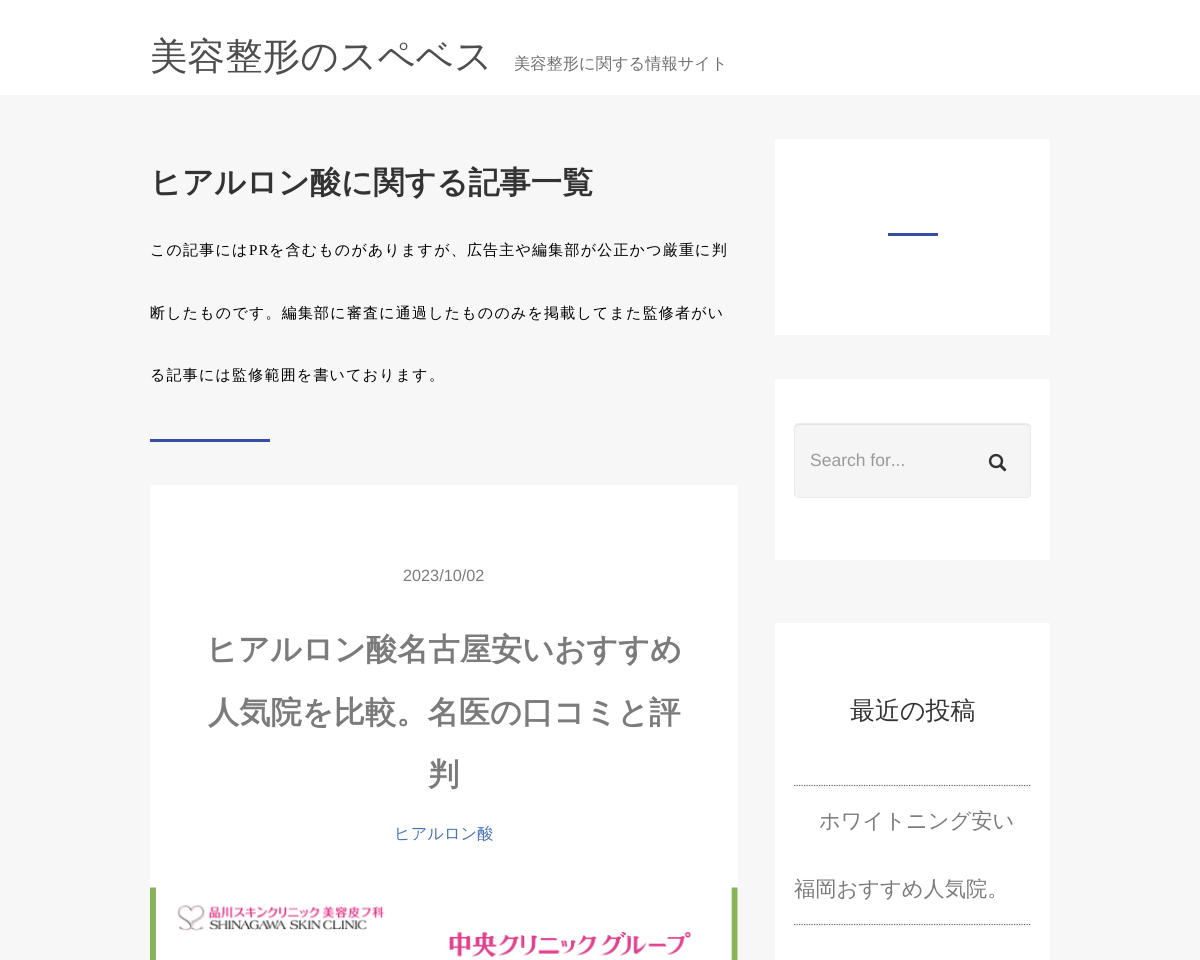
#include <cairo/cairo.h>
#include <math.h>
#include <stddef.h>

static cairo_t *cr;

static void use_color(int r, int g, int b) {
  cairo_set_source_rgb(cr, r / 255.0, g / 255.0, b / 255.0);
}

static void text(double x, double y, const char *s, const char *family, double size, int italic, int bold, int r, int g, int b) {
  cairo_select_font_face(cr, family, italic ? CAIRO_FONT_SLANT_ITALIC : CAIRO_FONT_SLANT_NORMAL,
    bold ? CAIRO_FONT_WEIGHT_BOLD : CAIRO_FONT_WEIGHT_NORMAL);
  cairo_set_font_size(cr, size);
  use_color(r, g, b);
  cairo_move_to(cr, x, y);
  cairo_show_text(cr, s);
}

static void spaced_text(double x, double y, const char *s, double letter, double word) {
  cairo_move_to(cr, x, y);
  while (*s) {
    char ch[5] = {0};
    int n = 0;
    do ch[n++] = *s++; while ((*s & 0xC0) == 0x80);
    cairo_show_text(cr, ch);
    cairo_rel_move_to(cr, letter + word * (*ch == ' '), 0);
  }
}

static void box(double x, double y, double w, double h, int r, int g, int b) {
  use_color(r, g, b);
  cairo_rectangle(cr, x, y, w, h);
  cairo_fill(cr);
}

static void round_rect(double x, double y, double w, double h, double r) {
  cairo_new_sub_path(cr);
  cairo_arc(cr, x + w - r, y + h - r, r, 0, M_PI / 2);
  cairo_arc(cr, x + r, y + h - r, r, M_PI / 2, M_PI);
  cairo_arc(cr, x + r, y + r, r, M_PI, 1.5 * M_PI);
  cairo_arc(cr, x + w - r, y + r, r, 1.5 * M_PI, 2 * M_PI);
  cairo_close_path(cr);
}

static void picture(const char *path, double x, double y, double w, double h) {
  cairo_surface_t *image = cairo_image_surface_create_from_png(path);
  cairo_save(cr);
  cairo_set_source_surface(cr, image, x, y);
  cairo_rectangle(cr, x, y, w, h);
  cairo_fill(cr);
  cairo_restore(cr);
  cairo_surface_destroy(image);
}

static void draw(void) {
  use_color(255, 255, 255);
  cairo_paint(cr);
  box(0, 95, 1200, 865, 247, 247, 247);
  box(150, 439, 120, 3, 55, 76, 165);
  box(150, 485, 588, 475, 255, 255, 255);
  picture("img_01.png", 150, 887, 588, 73);
  box(775, 139, 275, 196, 255, 255, 255);
  box(888, 233, 50, 3, 55, 76, 165);
  box(775, 379, 275, 181, 255, 255, 255);
  use_color(245, 245, 245);
  round_rect(794, 423, 237, 75, 5);
  cairo_fill(cr);
  use_color(227, 227, 227);
  cairo_new_path(cr);
  cairo_move_to(cr, 799, 425);
  cairo_line_to(cr, 1026, 425);
  cairo_curve_to(cr, 1028, 425, 1030, 427, 1030, 429);
  cairo_curve_to(cr, 1030, 426, 1029, 424, 1026, 424);
  cairo_line_to(cr, 799, 424);
  cairo_curve_to(cr, 796, 424, 795, 426, 795, 429);
  cairo_curve_to(cr, 795, 427, 797, 425, 799, 425);
  cairo_close_path(cr);
  cairo_fill(cr);
  round_rect(794.5, 423.5, 236, 74, 4.5);
  use_color(235, 235, 235);
  cairo_set_line_width(cr, 1);
  cairo_stroke(cr);
  picture("img_02.png", 988, 453, 19, 19);
  box(775, 623, 275, 337, 255, 255, 255);
  cairo_new_path(cr);
  cairo_move_to(cr, 794, 785.5);
  cairo_line_to(cr, 1031, 785.5);
  use_color(104, 104, 104);
  cairo_set_line_width(cr, 1.2);
  cairo_set_dash(cr, (double[]){1.25, 1.25}, 2, 0);
  cairo_stroke(cr);
  cairo_new_path(cr);
  cairo_move_to(cr, 794, 924.5);
  cairo_line_to(cr, 1031, 924.5);
  cairo_stroke(cr);
  cairo_select_font_face(cr, "WenQuanYi Zen Hei Medium", CAIRO_FONT_SLANT_NORMAL, CAIRO_FONT_WEIGHT_NORMAL);
  cairo_set_font_size(cr, 37.5);
  use_color(78, 78, 78);
  spaced_text(150, 69, "美容整形のスペベス", 0.1, 0);
  text(514, 69, "美容整形に関する情報サイト", "WenQuanYi Zen Hei Medium", 16.25, 0, 0, 111, 111, 111);
  text(150, 193, "ヒアルロン酸に関する記事一覧", "WenQuanYi Zen Hei", 31.25, 0, 1, 51, 51, 51);
  cairo_select_font_face(cr, "WenQuanYi Zen Hei Medium", CAIRO_FONT_SLANT_NORMAL, CAIRO_FONT_WEIGHT_NORMAL);
  cairo_set_font_size(cr, 15);
  use_color(0, 0, 0);
  spaced_text(150, 255, "この記事には", 1.2, 0);
  cairo_select_font_face(cr, "Liberation Serif", CAIRO_FONT_SLANT_NORMAL, CAIRO_FONT_WEIGHT_NORMAL);
  spaced_text(249, 255, "PR", 1.2, 0);
  cairo_select_font_face(cr, "WenQuanYi Zen Hei Medium", CAIRO_FONT_SLANT_NORMAL, CAIRO_FONT_WEIGHT_NORMAL);
  spaced_text(269, 255, "を含むものがありますが、広告主や編集部が公正かつ厳重に判", 1.2, 0);
  spaced_text(150, 318, "断したものです。編集部に審査に通過したもののみを掲載してまた監修者がい", 1.2, 0);
  spaced_text(150, 380, "る記事には監修範囲を書いております。", 1.2, 0);
  text(403, 581, "2023/10/02", "Liberation Sans", 16.25, 0, 0, 123, 123, 123);
  text(206, 660, "ヒアルロン酸名古屋安いおすすめ", "WenQuanYi Zen Hei", 31.25, 0, 1, 123, 123, 123);
  text(208, 723, "人気院を比較。名医の口コミと評", "WenQuanYi Zen Hei", 31.25, 0, 1, 123, 123, 123);
  text(428, 785, "判", "WenQuanYi Zen Hei", 31.25, 0, 1, 123, 123, 123);
  text(394, 839, "ヒアルロン酸", "WenQuanYi Zen Hei Medium", 16.25, 0, 0, 71, 115, 186);
  text(810, 466, "Search for...", "Liberation Sans", 17.5, 0, 0, 153, 153, 153);
  text(850, 719, "最近の投稿", "WenQuanYi Zen Hei Medium", 25, 0, 0, 51, 51, 51);
  text(819, 828, "ホワイトニング安い", "WenQuanYi Zen Hei Medium", 21.25, 0, 0, 123, 123, 123);
  text(794, 896, "福岡おすすめ人気院。", "WenQuanYi Zen Hei Medium", 21.25, 0, 0, 123, 123, 123);
}

int main(void) {
  cairo_surface_t *surface = cairo_image_surface_create(CAIRO_FORMAT_RGB24, 1200, 960);
  cr = cairo_create(surface);
  cairo_font_options_t *options = cairo_font_options_create();
  cairo_font_options_set_hint_metrics(options, CAIRO_HINT_METRICS_OFF);
  cairo_font_options_set_hint_style(options, CAIRO_HINT_STYLE_NONE);
  cairo_set_font_options(cr, options);
  cairo_set_miter_limit(cr, 4);
  draw();
  cairo_surface_write_to_png(surface, "out.png");
  cairo_font_options_destroy(options);
  cairo_destroy(cr);
  cairo_surface_destroy(surface);
  return 0;
}
